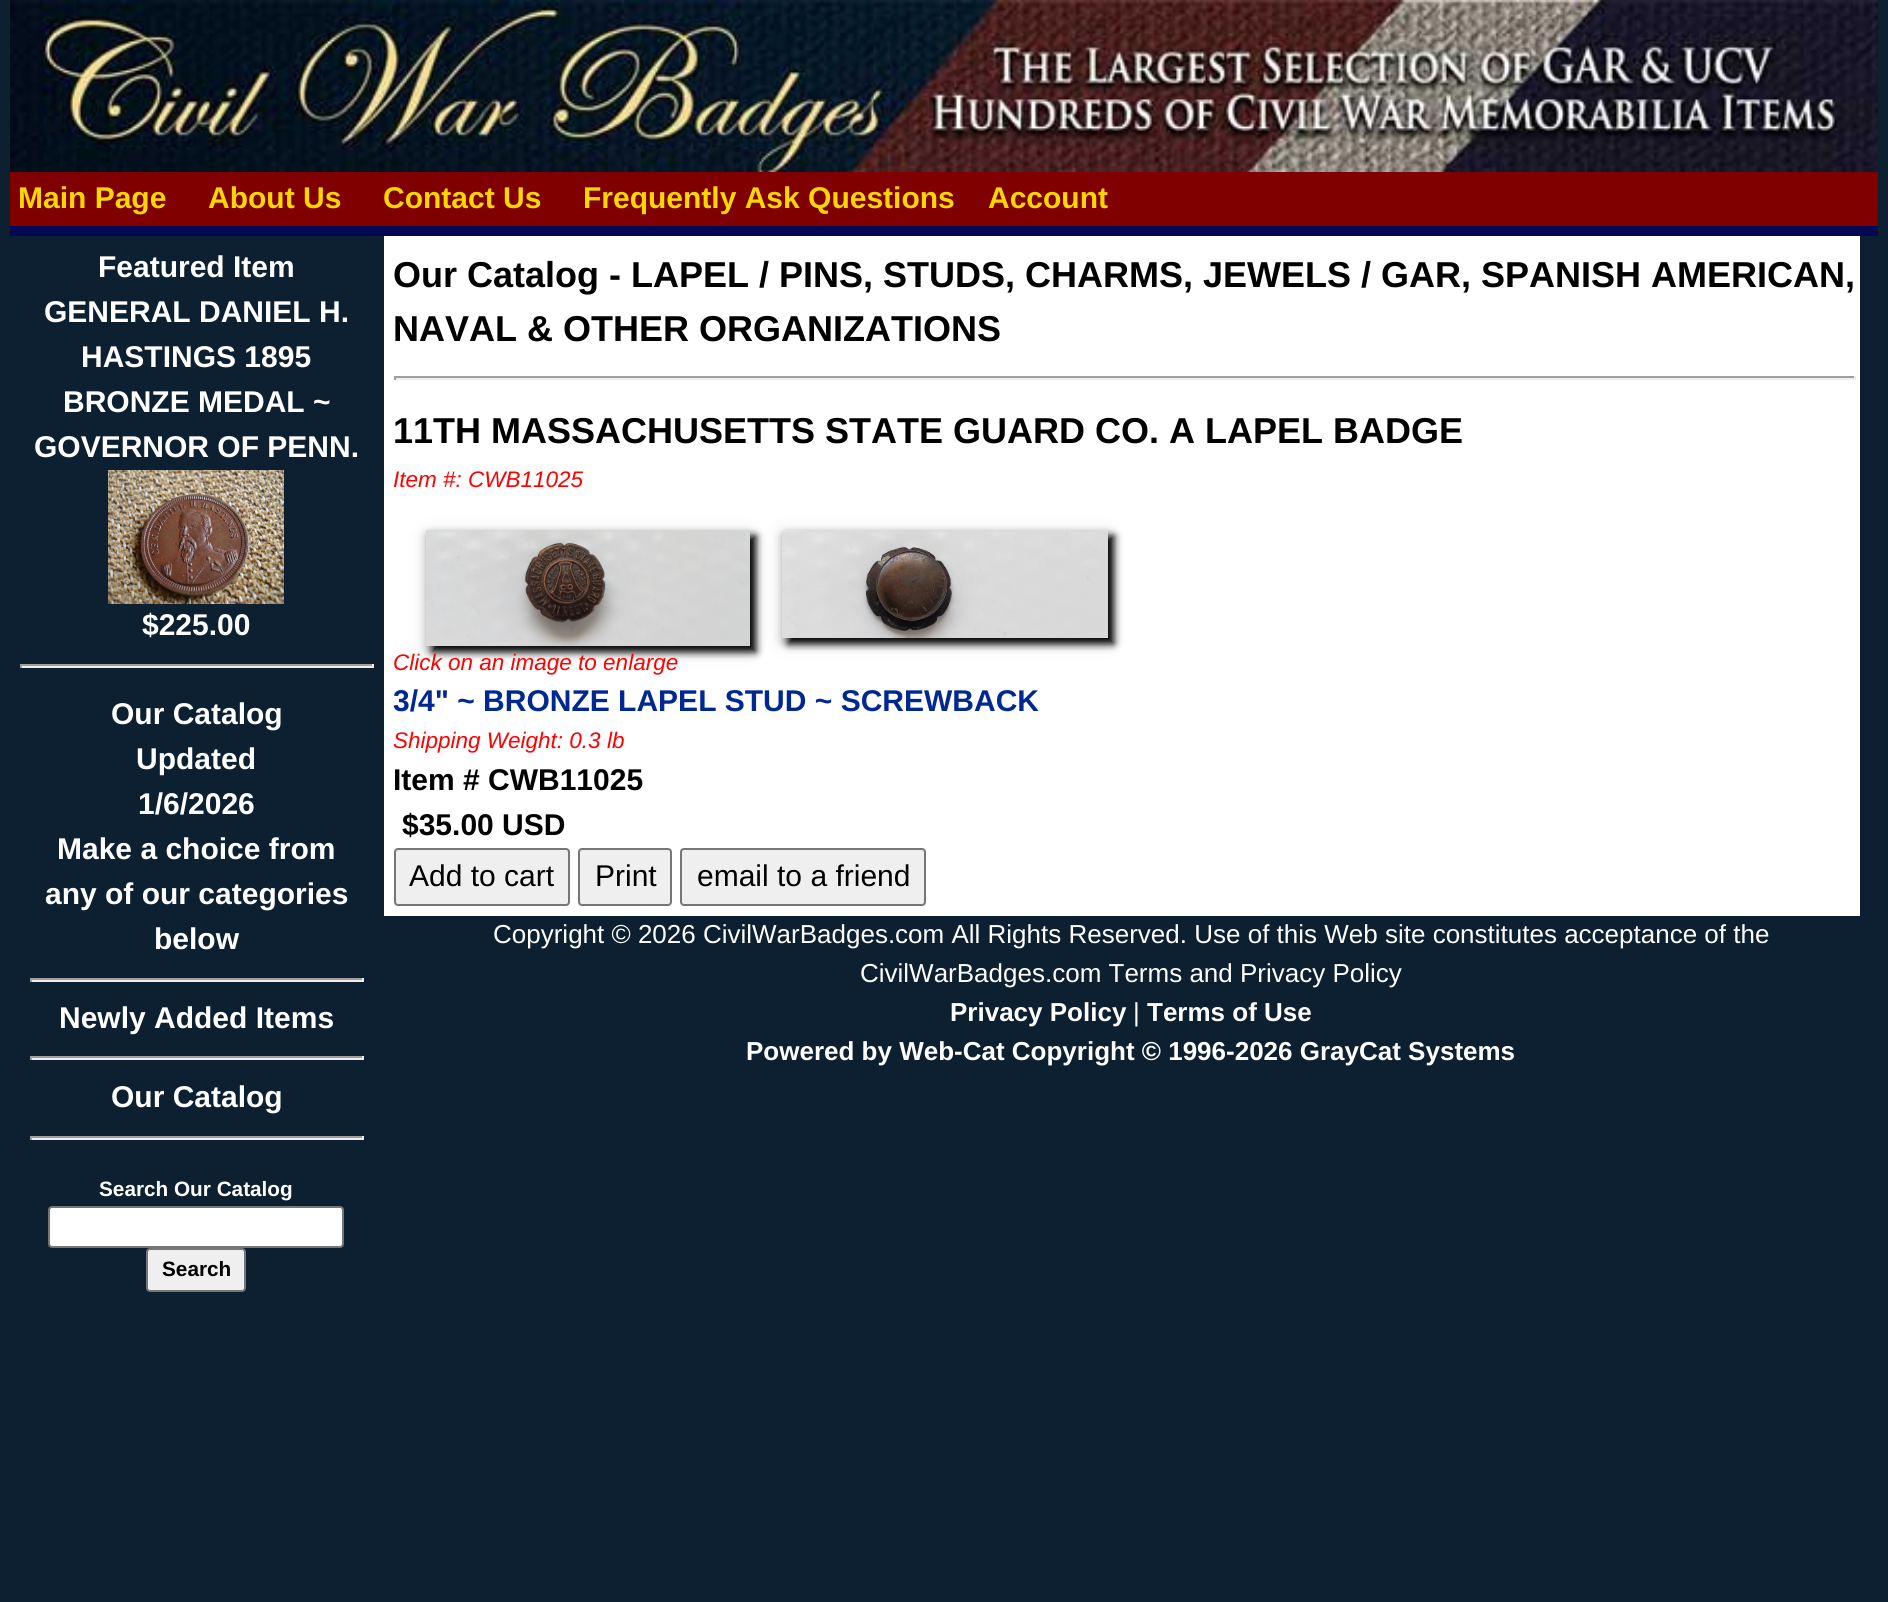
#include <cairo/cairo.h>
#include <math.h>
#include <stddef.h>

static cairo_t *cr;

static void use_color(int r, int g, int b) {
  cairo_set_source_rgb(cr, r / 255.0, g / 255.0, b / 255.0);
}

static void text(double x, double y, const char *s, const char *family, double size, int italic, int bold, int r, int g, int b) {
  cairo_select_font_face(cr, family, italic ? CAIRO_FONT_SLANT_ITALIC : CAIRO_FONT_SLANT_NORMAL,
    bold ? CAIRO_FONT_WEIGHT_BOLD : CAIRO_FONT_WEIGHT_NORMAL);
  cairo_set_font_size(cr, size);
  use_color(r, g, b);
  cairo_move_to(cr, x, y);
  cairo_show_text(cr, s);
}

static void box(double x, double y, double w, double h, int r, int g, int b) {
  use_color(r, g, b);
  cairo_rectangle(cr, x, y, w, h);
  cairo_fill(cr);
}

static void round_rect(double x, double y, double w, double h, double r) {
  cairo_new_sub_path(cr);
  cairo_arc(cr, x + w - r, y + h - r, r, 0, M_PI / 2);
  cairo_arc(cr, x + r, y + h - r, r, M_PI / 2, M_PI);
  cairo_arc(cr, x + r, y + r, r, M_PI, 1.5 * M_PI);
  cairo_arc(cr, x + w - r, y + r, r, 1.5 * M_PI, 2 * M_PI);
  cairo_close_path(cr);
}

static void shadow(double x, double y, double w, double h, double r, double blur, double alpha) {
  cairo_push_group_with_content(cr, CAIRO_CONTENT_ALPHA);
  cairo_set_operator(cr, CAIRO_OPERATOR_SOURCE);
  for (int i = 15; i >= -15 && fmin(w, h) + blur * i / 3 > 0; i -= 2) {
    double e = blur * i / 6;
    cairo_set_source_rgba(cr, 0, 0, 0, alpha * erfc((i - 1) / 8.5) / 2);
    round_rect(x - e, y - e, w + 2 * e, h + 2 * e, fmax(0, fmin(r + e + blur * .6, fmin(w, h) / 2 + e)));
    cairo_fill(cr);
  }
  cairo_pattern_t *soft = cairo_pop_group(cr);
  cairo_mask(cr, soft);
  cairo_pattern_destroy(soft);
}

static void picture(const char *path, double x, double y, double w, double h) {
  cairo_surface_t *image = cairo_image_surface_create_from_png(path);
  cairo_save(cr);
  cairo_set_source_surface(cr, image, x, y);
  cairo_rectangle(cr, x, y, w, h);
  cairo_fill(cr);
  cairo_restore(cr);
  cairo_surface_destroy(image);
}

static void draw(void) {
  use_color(13, 32, 49);
  cairo_paint(cr);
  box(10, 172, 1868, 54, 128, 0, 0);
  picture("img_01.png", 10, 0, 1868, 172);
  box(10, 226, 1868, 10, 3, 7, 84);
  picture("img_02.png", 108, 470, 176, 134);
  box(20, 664, 354, 2, 159, 159, 159);
  box(372, 664, 2, 4, 238, 238, 238);
  box(20, 666, 354, 2, 238, 238, 238);
  box(20, 664, 2, 4, 159, 159, 159);
  box(30, 978, 334, 2, 159, 159, 159);
  box(362, 978, 2, 4, 238, 238, 238);
  box(30, 980, 334, 2, 238, 238, 238);
  box(30, 978, 2, 4, 159, 159, 159);
  box(30, 1056, 334, 2, 159, 159, 159);
  box(362, 1056, 2, 4, 238, 238, 238);
  box(30, 1058, 334, 2, 238, 238, 238);
  box(30, 1056, 2, 4, 159, 159, 159);
  box(30, 1136, 334, 2, 159, 159, 159);
  box(362, 1136, 2, 4, 238, 238, 238);
  box(30, 1138, 334, 2, 238, 238, 238);
  box(30, 1136, 2, 4, 159, 159, 159);
  use_color(255, 255, 255);
  round_rect(49, 1207, 294, 40, 3);
  cairo_fill_preserve(cr);
  use_color(118, 118, 118);
  cairo_stroke(cr);
  use_color(239, 239, 239);
  round_rect(147, 1249, 98, 42, 3);
  cairo_fill_preserve(cr);
  use_color(118, 118, 118);
  cairo_stroke(cr);
  box(384, 236, 1476, 680, 255, 255, 255);
  box(394, 376, 1462, 2, 159, 159, 159);
  box(1854, 376, 2, 4, 238, 238, 238);
  box(394, 378, 1462, 2, 238, 238, 238);
  box(394, 376, 2, 4, 159, 159, 159);
  use_color(0, 0, 0);
  shadow(426, 534, 324, 116, 0, 10, 0.12);
  shadow(426, 534, 324, 116, 0, 5, 0.16);
  shadow(432, 536, 324, 116, 0, 4, 1);
  picture("img_03.png", 426, 530, 324, 116);
  shadow(782, 534, 326, 108, 0, 10, 0.12);
  shadow(782, 534, 326, 108, 0, 5, 0.16);
  shadow(788, 536, 326, 108, 0, 4, 1);
  picture("img_04.png", 782, 530, 326, 108);
  use_color(239, 239, 239);
  round_rect(395, 849, 174, 56, 3);
  cairo_fill_preserve(cr);
  use_color(118, 118, 118);
  cairo_stroke(cr);
  use_color(239, 239, 239);
  round_rect(579, 849, 92, 56, 3);
  cairo_fill_preserve(cr);
  use_color(118, 118, 118);
  cairo_stroke(cr);
  use_color(239, 239, 239);
  round_rect(681, 849, 244, 56, 3);
  cairo_fill_preserve(cr);
  use_color(118, 118, 118);
  cairo_stroke(cr);
  text(18, 208, "Main Page", "Liberation Sans", 30, 0, 1, 255, 215, 0);
  text(208, 208, "About Us", "Liberation Sans", 30, 0, 1, 255, 215, 0);
  text(383, 208, "Contact Us", "Liberation Sans", 30, 0, 1, 255, 215, 0);
  text(583, 208, "Frequently Ask Questions", "Liberation Sans", 30, 0, 1, 255, 215, 0);
  text(988, 208, "Account", "Liberation Sans", 30, 0, 1, 255, 215, 0);
  text(98, 277, "Featured Item", "Liberation Sans", 30, 0, 1, 255, 255, 255);
  text(44, 322, "GENERAL DANIEL H.", "Liberation Sans", 30, 0, 1, 255, 255, 255);
  text(81, 367, "HASTINGS 1895", "Liberation Sans", 30, 0, 1, 255, 255, 255);
  text(63, 412, "BRONZE MEDAL ~", "Liberation Sans", 30, 0, 1, 255, 255, 255);
  text(34, 457, "GOVERNOR OF PENN.", "Liberation Sans", 30, 0, 1, 255, 255, 255);
  text(142, 635, "$225.00", "Liberation Sans", 30, 0, 1, 255, 255, 255);
  text(111, 724, "Our Catalog", "Liberation Sans", 30, 0, 1, 255, 255, 255);
  text(136, 769, "Updated", "Liberation Sans", 30, 0, 1, 255, 255, 255);
  text(138, 814, "1/6/2026", "Liberation Sans", 30, 0, 1, 255, 255, 255);
  text(57, 859, "Make a choice from", "Liberation Sans", 30, 0, 1, 255, 255, 255);
  text(45, 904, "any of our categories", "Liberation Sans", 30, 0, 1, 255, 255, 255);
  text(154, 949, "below", "Liberation Sans", 30, 0, 1, 255, 255, 255);
  text(59, 1028, "Newly Added Items", "Liberation Sans", 30, 0, 1, 255, 255, 255);
  text(111, 1107, "Our Catalog", "Liberation Sans", 30, 0, 1, 255, 255, 255);
  text(99, 1196, "Search Our Catalog", "Liberation Sans", 20.75, 0, 1, 255, 255, 255);
  text(162, 1276, "Search", "Liberation Sans", 20.75, 0, 1, 0, 0, 0);
  text(393, 287, "Our Catalog - LAPEL / PINS, STUDS, CHARMS, JEWELS / GAR, SPANISH AMERICAN,", "Liberation Sans", 36, 0, 1, 0, 0, 0);
  text(393, 341, "NAVAL & OTHER ORGANIZATIONS", "Liberation Sans", 36, 0, 1, 0, 0, 0);
  text(393, 443, "11TH MASSACHUSETTS STATE GUARD CO. A LAPEL BADGE", "Liberation Sans", 36, 0, 1, 0, 0, 0);
  text(393, 487, "Item #: CWB11025", "Liberation Sans", 22.5, 1, 0, 255, 0, 0);
  text(393, 670, "Click on an image to enlarge", "Liberation Sans", 22.5, 1, 0, 255, 0, 0);
  text(393, 711, "3/4\" ~ BRONZE LAPEL STUD ~ SCREWBACK", "Liberation Sans", 30, 0, 1, 0, 40, 146);
  text(393, 748, "Shipping Weight: 0.3 lb", "Liberation Sans", 22.5, 1, 0, 255, 0, 0);
  text(393, 790, "Item # CWB11025", "Liberation Sans", 30, 0, 1, 0, 0, 0);
  text(402, 835, "$35.00 USD", "Liberation Sans", 30, 0, 1, 0, 0, 0);
  text(409, 886, "Add to cart", "Liberation Sans", 30, 0, 0, 0, 0, 0);
  text(595, 886, "Print", "Liberation Sans", 30, 0, 0, 0, 0, 0);
  text(697, 886, "email to a friend", "Liberation Sans", 30, 0, 0, 0, 0, 0);
  text(493, 943, "Copyright © 2026 CivilWarBadges.com All Rights Reserved. Use of this Web site constitutes acceptance of the", "Liberation Sans", 26, 0, 0, 255, 255, 255);
  text(860, 982, "CivilWarBadges.com Terms and Privacy Policy", "Liberation Sans", 26, 0, 0, 255, 255, 255);
  text(950, 1021, "Privacy Policy", "Liberation Sans", 26, 0, 1, 255, 255, 255);
  text(1133, 1021, "|", "Liberation Sans", 26, 0, 0, 255, 255, 255);
  text(1147, 1021, "Terms of Use", "Liberation Sans", 26, 0, 1, 255, 255, 255);
  text(746, 1060, "Powered by Web-Cat Copyright © 1996-2026 GrayCat Systems", "Liberation Sans", 26, 0, 1, 255, 255, 255);
}

int main(void) {
  cairo_surface_t *surface = cairo_image_surface_create(CAIRO_FORMAT_RGB24, 1888, 1602);
  cr = cairo_create(surface);
  cairo_font_options_t *options = cairo_font_options_create();
  cairo_font_options_set_hint_metrics(options, CAIRO_HINT_METRICS_OFF);
  cairo_font_options_set_hint_style(options, CAIRO_HINT_STYLE_NONE);
  cairo_set_font_options(cr, options);
  cairo_set_miter_limit(cr, 4);
  draw();
  cairo_surface_write_to_png(surface, "out.png");
  cairo_font_options_destroy(options);
  cairo_destroy(cr);
  cairo_surface_destroy(surface);
  return 0;
}
